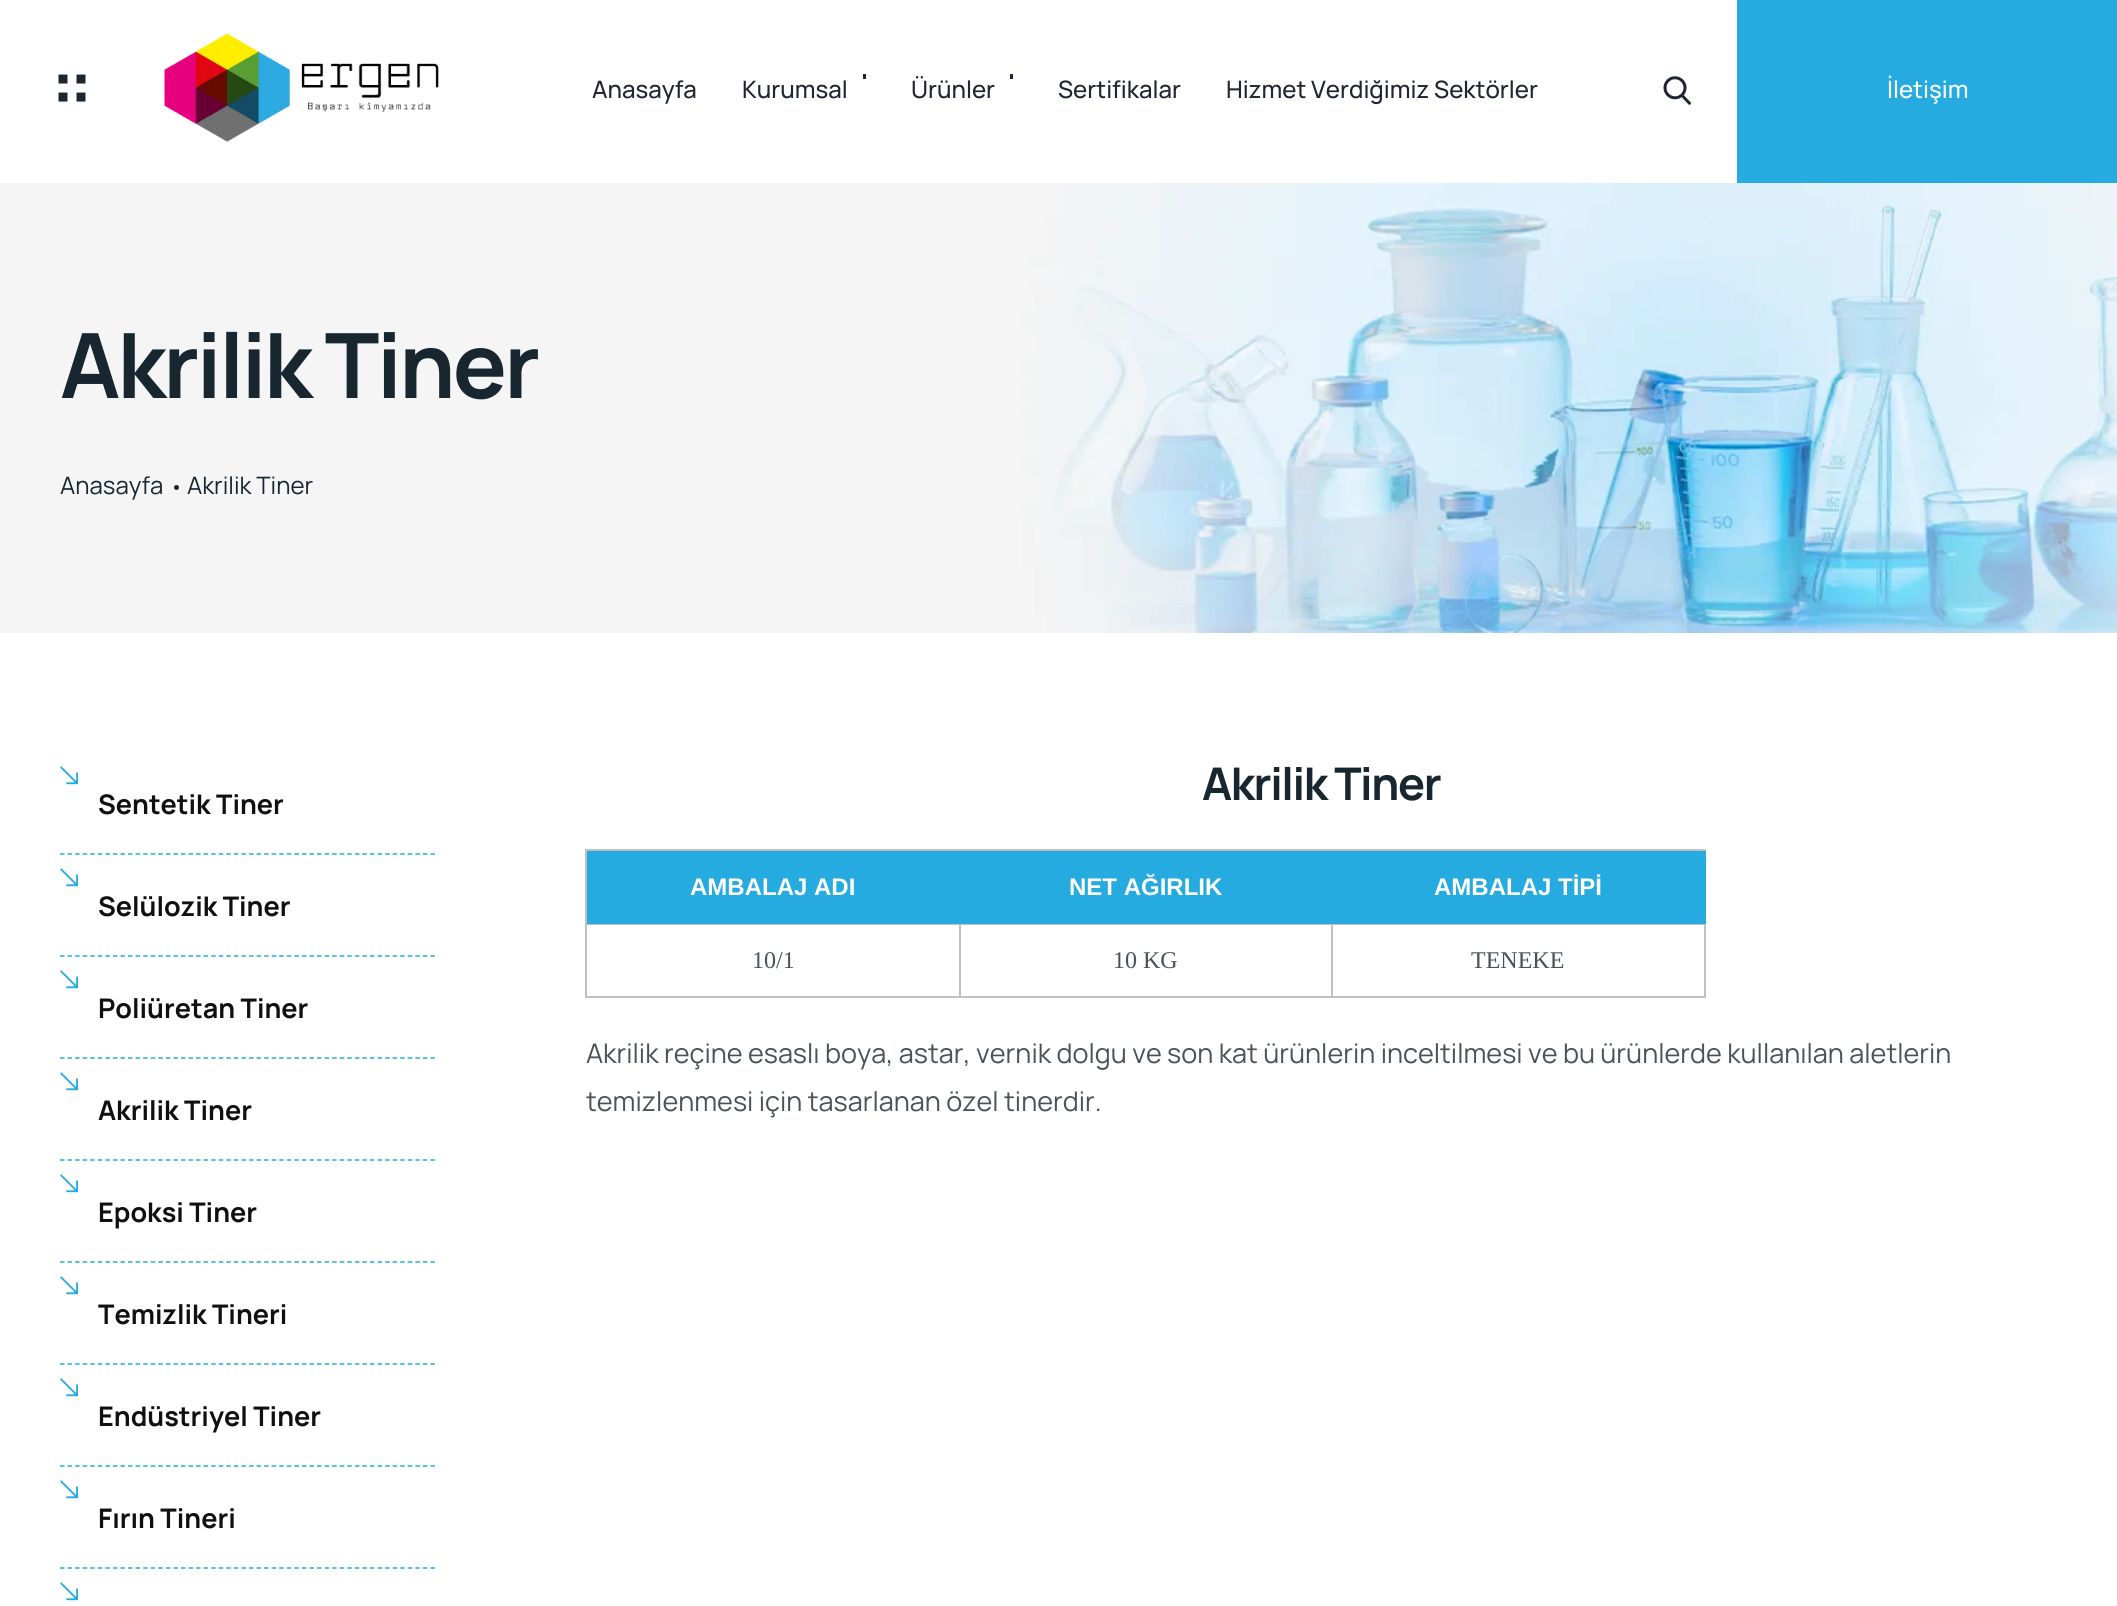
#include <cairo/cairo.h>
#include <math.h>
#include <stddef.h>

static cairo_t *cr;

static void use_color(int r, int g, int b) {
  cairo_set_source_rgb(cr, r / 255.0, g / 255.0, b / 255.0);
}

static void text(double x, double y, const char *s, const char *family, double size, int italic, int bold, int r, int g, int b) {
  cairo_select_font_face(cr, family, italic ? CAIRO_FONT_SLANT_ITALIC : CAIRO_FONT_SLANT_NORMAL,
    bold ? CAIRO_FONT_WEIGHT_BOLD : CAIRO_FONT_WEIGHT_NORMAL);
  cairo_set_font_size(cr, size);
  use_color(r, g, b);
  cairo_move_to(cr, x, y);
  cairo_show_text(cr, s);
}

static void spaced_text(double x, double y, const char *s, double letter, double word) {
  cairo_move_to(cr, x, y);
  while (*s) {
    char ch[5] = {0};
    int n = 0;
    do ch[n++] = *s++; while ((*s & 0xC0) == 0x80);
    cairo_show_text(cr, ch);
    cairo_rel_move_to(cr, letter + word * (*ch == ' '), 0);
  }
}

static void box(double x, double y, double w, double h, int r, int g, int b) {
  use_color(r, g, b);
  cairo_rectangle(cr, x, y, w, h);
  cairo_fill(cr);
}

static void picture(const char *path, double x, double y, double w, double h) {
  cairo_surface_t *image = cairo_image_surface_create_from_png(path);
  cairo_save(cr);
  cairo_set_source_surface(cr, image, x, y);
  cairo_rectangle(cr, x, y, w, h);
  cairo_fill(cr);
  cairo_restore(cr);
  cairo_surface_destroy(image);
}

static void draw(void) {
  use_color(255, 255, 255);
  cairo_paint(cr);
  picture("img_01.png", 58, 74, 28, 28);
  picture("img_02.png", 164, 33, 275, 109);
  box(863, 74, 3, 5, 31, 37, 49);
  box(1010, 74, 3, 5, 31, 37, 49);
  picture("img_03.png", 1663, 76, 28, 29);
  box(1737, 0, 380, 183, 37, 171, 224);
  picture("img_04.png", 0, 183, 2117, 450);
  use_color(23, 38, 47);
  cairo_arc(cr, 176.5, 487.5, 2.5, 0, 2 * M_PI);
  cairo_fill(cr);
  cairo_new_path(cr);
  cairo_move_to(cr, 60, 854);
  cairo_line_to(cr, 435, 854);
  use_color(37, 171, 224);
  cairo_set_line_width(cr, 1.5);
  cairo_set_dash(cr, (double[]){4.5, 3.06}, 2, 0);
  cairo_stroke(cr);
  picture("img_05.png", 60, 766, 18, 19);
  cairo_new_path(cr);
  cairo_move_to(cr, 60, 956);
  cairo_line_to(cr, 435, 956);
  cairo_stroke(cr);
  picture("img_05.png", 60, 868, 18, 19);
  cairo_new_path(cr);
  cairo_move_to(cr, 60, 1058);
  cairo_line_to(cr, 435, 1058);
  cairo_stroke(cr);
  picture("img_05.png", 60, 970, 18, 19);
  cairo_new_path(cr);
  cairo_move_to(cr, 60, 1160);
  cairo_line_to(cr, 435, 1160);
  cairo_stroke(cr);
  picture("img_05.png", 60, 1072, 18, 19);
  cairo_new_path(cr);
  cairo_move_to(cr, 60, 1262);
  cairo_line_to(cr, 435, 1262);
  cairo_stroke(cr);
  picture("img_05.png", 60, 1174, 18, 19);
  cairo_new_path(cr);
  cairo_move_to(cr, 60, 1364);
  cairo_line_to(cr, 435, 1364);
  cairo_stroke(cr);
  picture("img_05.png", 60, 1276, 18, 19);
  cairo_new_path(cr);
  cairo_move_to(cr, 60, 1466);
  cairo_line_to(cr, 435, 1466);
  cairo_stroke(cr);
  picture("img_05.png", 60, 1378, 18, 19);
  cairo_new_path(cr);
  cairo_move_to(cr, 60, 1568);
  cairo_line_to(cr, 435, 1568);
  cairo_stroke(cr);
  picture("img_05.png", 60, 1480, 18, 19);
  picture("img_05.png", 60, 1582, 18, 19);
  box(585, 849, 1121, 2, 192, 192, 192);
  box(1331, 924, 375, 1, 192, 192, 192);
  box(1704, 923, 2, 75, 192, 192, 192);
  box(1331, 996, 375, 2, 192, 192, 192);
  box(1331, 923, 2, 75, 192, 192, 192);
  box(959, 924, 373, 1, 192, 192, 192);
  box(959, 996, 373, 2, 192, 192, 192);
  box(959, 923, 2, 75, 192, 192, 192);
  box(585, 924, 375, 1, 192, 192, 192);
  box(585, 996, 375, 2, 192, 192, 192);
  box(585, 923, 2, 75, 192, 192, 192);
  box(585, 849, 2, 75, 192, 192, 192);
  box(587, 851, 1119, 73, 37, 171, 224);
  text(592, 98, "Anasayfa", "Manrope Medium", 24, 0, 0, 31, 37, 49);
  text(742, 98, "Kurumsal", "Manrope Medium", 24, 0, 0, 31, 37, 49);
  text(911, 98, "Ürünler", "Manrope Medium", 24, 0, 0, 31, 37, 49);
  text(1058, 98, "Sertifikalar", "Manrope Medium", 24, 0, 0, 31, 37, 49);
  text(1226, 98, "Hizmet Verdiğimiz Sektörler", "Manrope Medium", 24, 0, 0, 31, 37, 49);
  text(1887, 98, "İletişim", "Manrope Medium", 24, 0, 0, 255, 255, 255);
  cairo_select_font_face(cr, "Manrope", CAIRO_FONT_SLANT_NORMAL, CAIRO_FONT_WEIGHT_BOLD);
  cairo_set_font_size(cr, 90);
  use_color(23, 38, 47);
  spaced_text(60, 398, "Akrilik Tiner", -2.75, 0);
  text(60, 494, "Anasayfa", "Manrope", 24, 0, 0, 23, 38, 47);
  text(187, 494, "Akrilik Tiner", "Manrope", 24, 0, 0, 23, 38, 47);
  text(98, 814, "Sentetik Tiner", "Manrope", 27, 0, 1, 16, 16, 16);
  text(98, 916, "Selülozik Tiner", "Manrope", 27, 0, 1, 16, 16, 16);
  text(98, 1018, "Poliüretan Tiner", "Manrope", 27, 0, 1, 16, 16, 16);
  text(98, 1120, "Akrilik Tiner", "Manrope", 27, 0, 1, 16, 16, 16);
  text(98, 1222, "Epoksi Tiner", "Manrope", 27, 0, 1, 16, 16, 16);
  text(98, 1324, "Temizlik Tineri", "Manrope", 27, 0, 1, 16, 16, 16);
  text(98, 1426, "Endüstriyel Tiner", "Manrope", 27, 0, 1, 16, 16, 16);
  text(98, 1528, "Fırın Tineri", "Manrope", 27, 0, 1, 16, 16, 16);
  cairo_set_font_size(cr, 45);
  use_color(23, 38, 47);
  spaced_text(1202, 800, "Akrilik Tiner", -1.4, 0);
  text(690, 895, "AMBALAJ ADI", "Liberation Sans", 24, 0, 1, 255, 255, 255);
  text(1069, 895, "NET AĞIRLIK", "Liberation Sans", 24, 0, 1, 255, 255, 255);
  text(1434, 895, "AMBALAJ TİPİ", "Liberation Sans", 24, 0, 1, 255, 255, 255);
  text(752, 968, "10/1", "Liberation Serif", 24, 0, 0, 74, 82, 87);
  text(1113, 968, "10 KG", "Liberation Serif", 24, 0, 0, 74, 82, 87);
  text(1471, 968, "TENEKE", "Liberation Serif", 24, 0, 0, 74, 82, 87);
  text(586, 1063, "Akrilik reçine esaslı boya, astar, vernik dolgu ve son kat ürünlerin inceltilmesi ve bu ürünlerde kullanılan aletlerin", "Manrope", 27, 0, 0, 74, 82, 87);
  text(586, 1111, "temizlenmesi için tasarlanan özel tinerdir.", "Manrope", 27, 0, 0, 74, 82, 87);
}

int main(void) {
  cairo_surface_t *surface = cairo_image_surface_create(CAIRO_FORMAT_RGB24, 2117, 1606);
  cr = cairo_create(surface);
  cairo_font_options_t *options = cairo_font_options_create();
  cairo_font_options_set_hint_metrics(options, CAIRO_HINT_METRICS_OFF);
  cairo_font_options_set_hint_style(options, CAIRO_HINT_STYLE_NONE);
  cairo_set_font_options(cr, options);
  cairo_set_miter_limit(cr, 4);
  draw();
  cairo_surface_write_to_png(surface, "out.png");
  cairo_font_options_destroy(options);
  cairo_destroy(cr);
  cairo_surface_destroy(surface);
  return 0;
}
